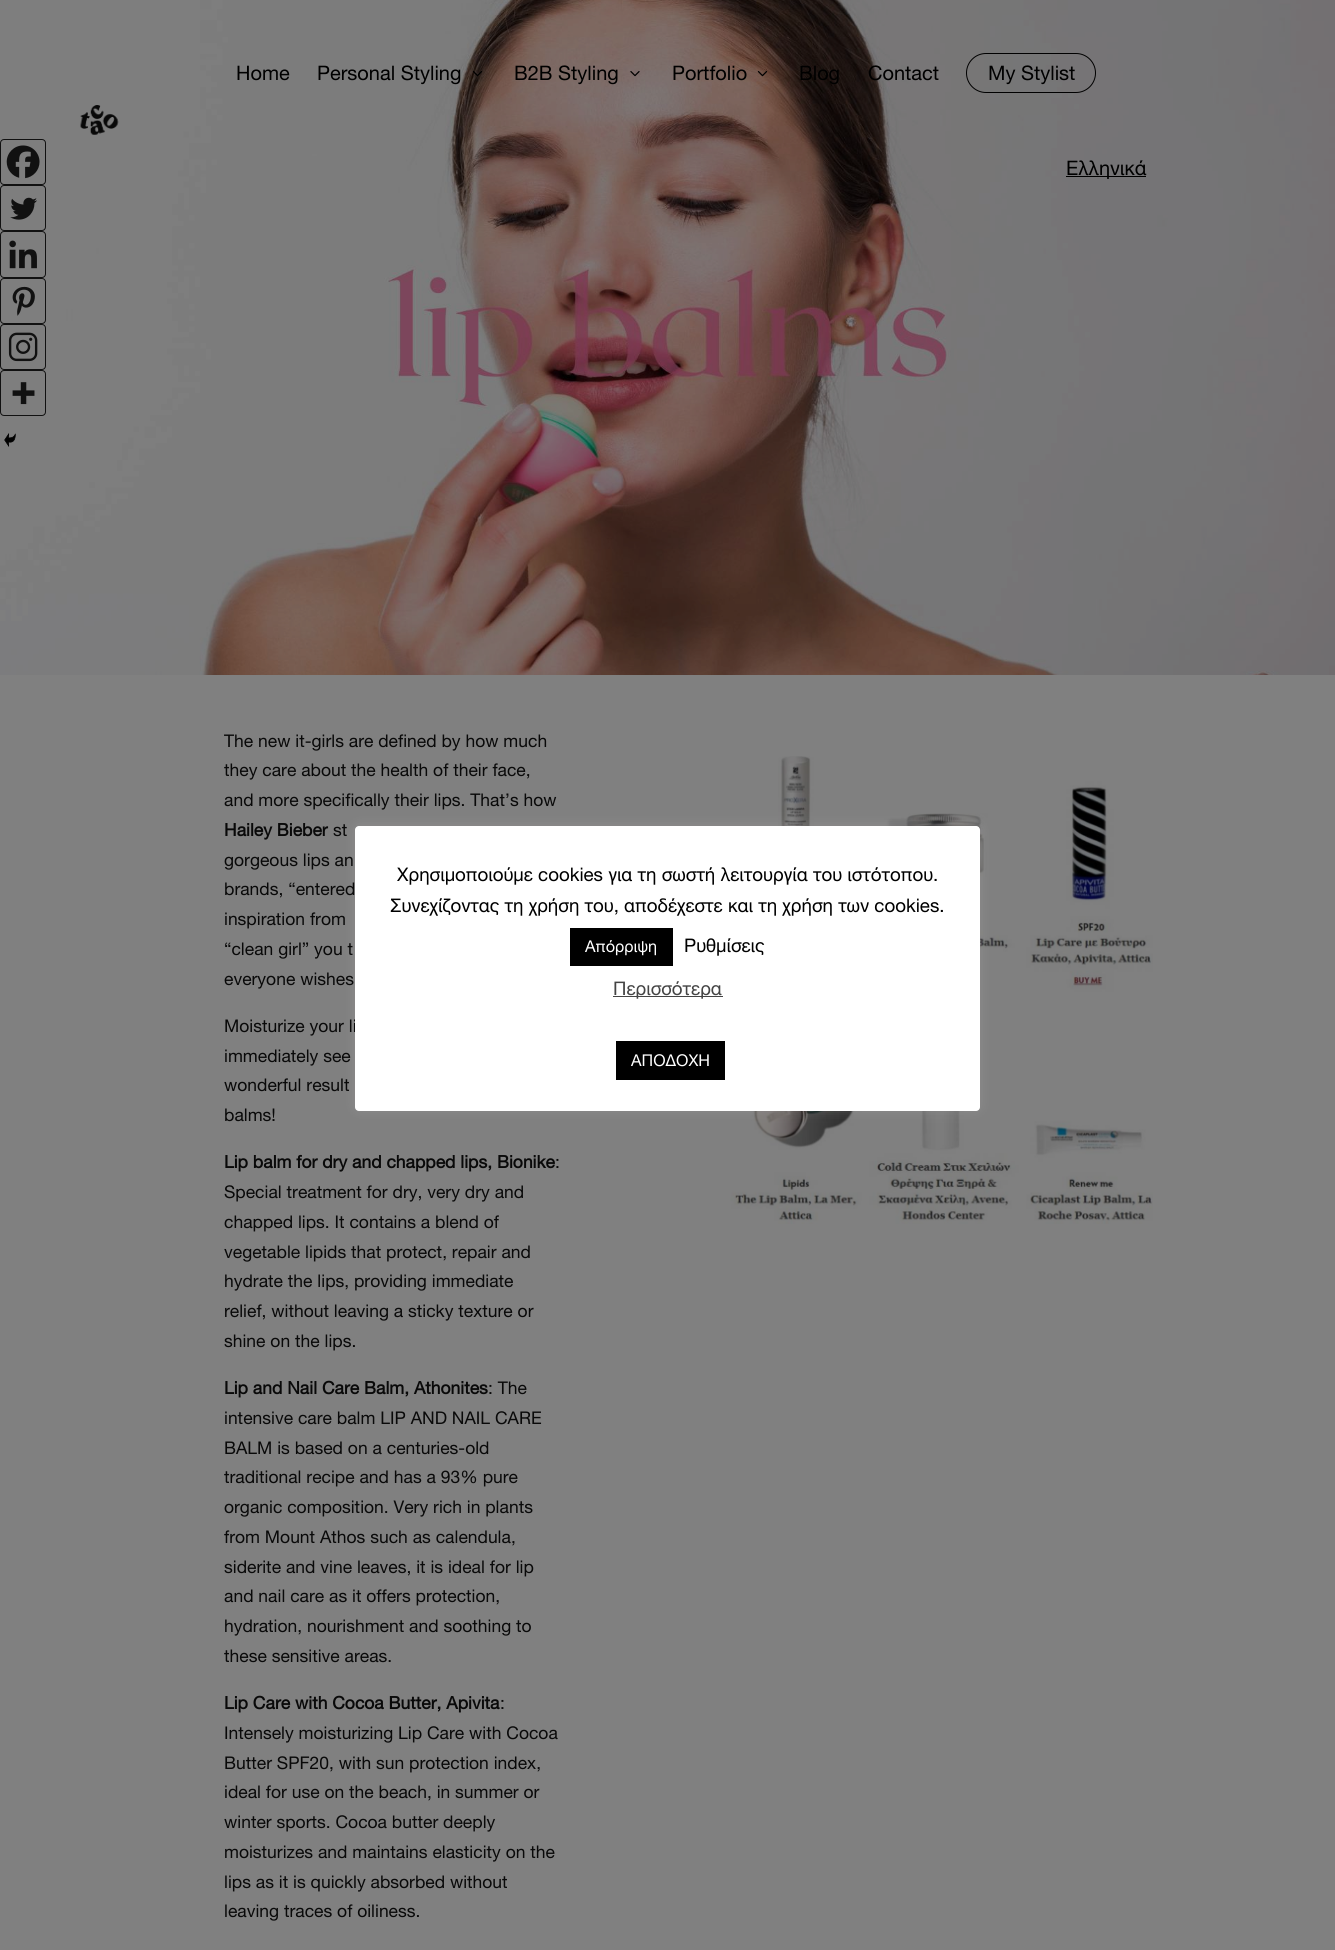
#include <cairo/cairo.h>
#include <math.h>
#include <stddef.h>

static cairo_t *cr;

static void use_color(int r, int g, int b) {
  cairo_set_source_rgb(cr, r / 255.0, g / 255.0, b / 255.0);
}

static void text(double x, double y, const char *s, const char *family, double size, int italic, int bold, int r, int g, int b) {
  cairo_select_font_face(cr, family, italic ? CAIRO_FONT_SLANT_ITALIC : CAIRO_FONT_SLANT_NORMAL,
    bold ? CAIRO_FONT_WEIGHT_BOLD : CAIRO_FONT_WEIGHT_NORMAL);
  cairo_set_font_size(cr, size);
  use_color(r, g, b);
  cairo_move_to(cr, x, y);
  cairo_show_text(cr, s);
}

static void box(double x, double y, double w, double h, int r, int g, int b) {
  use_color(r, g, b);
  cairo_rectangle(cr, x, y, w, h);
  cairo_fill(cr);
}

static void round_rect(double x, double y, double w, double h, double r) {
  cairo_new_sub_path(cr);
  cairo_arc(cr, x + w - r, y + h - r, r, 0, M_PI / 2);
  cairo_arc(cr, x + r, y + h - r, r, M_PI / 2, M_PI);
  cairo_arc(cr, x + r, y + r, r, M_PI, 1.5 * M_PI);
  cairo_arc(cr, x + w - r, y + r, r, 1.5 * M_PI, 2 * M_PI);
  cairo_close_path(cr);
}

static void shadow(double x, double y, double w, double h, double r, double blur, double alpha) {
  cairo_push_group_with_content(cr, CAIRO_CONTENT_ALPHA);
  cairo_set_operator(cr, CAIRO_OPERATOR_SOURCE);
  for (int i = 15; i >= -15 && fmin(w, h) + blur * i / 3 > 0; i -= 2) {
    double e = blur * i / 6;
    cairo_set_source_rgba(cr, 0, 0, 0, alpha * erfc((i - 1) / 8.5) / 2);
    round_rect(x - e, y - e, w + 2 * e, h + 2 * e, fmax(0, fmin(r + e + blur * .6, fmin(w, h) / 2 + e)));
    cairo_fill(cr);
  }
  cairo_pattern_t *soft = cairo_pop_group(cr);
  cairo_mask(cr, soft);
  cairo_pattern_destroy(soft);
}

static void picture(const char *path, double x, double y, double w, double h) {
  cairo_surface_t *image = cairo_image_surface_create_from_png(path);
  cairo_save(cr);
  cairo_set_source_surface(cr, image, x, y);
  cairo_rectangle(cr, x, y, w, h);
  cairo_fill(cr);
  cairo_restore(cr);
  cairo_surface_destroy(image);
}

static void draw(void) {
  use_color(128, 128, 128);
  cairo_paint(cr);
  picture("img_12.png", 0, 0, 1335, 675);
  picture("img_01.png", 80, 105, 39, 30);
  picture("img_02.png", 472, 71, 11, 6);
  picture("img_03.png", 630, 71, 10, 6);
  picture("img_04.png", 757, 71, 11, 6);
  round_rect(966.5, 53.5, 129, 39, 19.5);
  use_color(0, 0, 0);
  cairo_set_line_width(cr, 1);
  cairo_stroke(cr);
  box(1066, 176, 80, 1, 0, 0, 0);
  round_rect(0.5, 139.5, 45, 45, 3.5);
  use_color(17, 17, 17);
  cairo_stroke(cr);
  picture("img_05.png", 6, 145, 34, 34);
  round_rect(0.5, 185.5, 45, 45, 3.5);
  cairo_stroke(cr);
  picture("img_06.png", 10, 197, 27, 23);
  round_rect(0.5, 231.5, 45, 46, 3.5);
  cairo_stroke(cr);
  picture("img_07.png", 9, 240, 28, 29);
  round_rect(0.5, 278.5, 45, 45, 3.5);
  cairo_stroke(cr);
  picture("img_08.png", 12, 286, 23, 30);
  round_rect(0.5, 324.5, 45, 45, 3.5);
  cairo_stroke(cr);
  picture("img_09.png", 8, 332, 30, 30);
  round_rect(0.5, 370.5, 45, 45, 3.5);
  cairo_stroke(cr);
  picture("img_10.png", 12, 382, 23, 23);
  picture("img_11.png", 4, 433, 12, 14);
  picture("img_13.png", 723, 756, 430, 468);
  use_color(172, 171, 171);
  shadow(355, 825, 625, 285, 4, 6, 0.3);
  text(236, 80, "Home", "Helvetica Neue", 20, 0, 0, 0, 0, 0);
  text(317, 80, "Personal Styling", "Helvetica Neue", 20, 0, 0, 0, 0, 0);
  text(514, 80, "B2B Styling", "Helvetica Neue", 20, 0, 0, 0, 0, 0);
  text(672, 80, "Portfolio", "Helvetica Neue", 20, 0, 0, 0, 0, 0);
  text(799, 80, "Blog", "Helvetica Neue", 20, 0, 0, 0, 0, 0);
  text(868, 80, "Contact", "Helvetica Neue", 20, 0, 0, 0, 0, 0);
  text(988, 80, "My Stylist", "Helvetica Neue", 20, 0, 0, 0, 0, 0);
  text(1066, 175, "Ελληνικά", "Helvetica Neue", 20, 0, 0, 0, 0, 0);
  text(224, 747, "The new it-girls are defined by how much", "Helvetica Neue", 17.5, 0, 0, 9, 9, 9);
  text(224, 776, "they care about the health of their face,", "Helvetica Neue", 17.5, 0, 0, 9, 9, 9);
  text(224, 806, "and more specifically their lips. That’s how", "Helvetica Neue", 17.5, 0, 0, 9, 9, 9);
  text(224, 836, "Hailey Bieber", "Helvetica Neue", 17.5, 0, 1, 9, 9, 9);
  text(333, 836, "st", "Helvetica Neue", 17.5, 0, 0, 9, 9, 9);
  text(224, 866, "gorgeous lips an", "Helvetica Neue", 17.5, 0, 0, 9, 9, 9);
  text(224, 895, "brands, “entered", "Helvetica Neue", 17.5, 0, 0, 9, 9, 9);
  text(224, 925, "inspiration from", "Helvetica Neue", 17.5, 0, 0, 9, 9, 9);
  text(224, 955, "“clean girl” you t", "Helvetica Neue", 17.5, 0, 0, 9, 9, 9);
  text(224, 985, "everyone wishes", "Helvetica Neue", 17.5, 0, 0, 9, 9, 9);
  text(224, 1032, "Moisturize your li", "Helvetica Neue", 17.5, 0, 0, 9, 9, 9);
  text(224, 1062, "immediately see", "Helvetica Neue", 17.5, 0, 0, 9, 9, 9);
  text(224, 1091, "wonderful result", "Helvetica Neue", 17.5, 0, 0, 9, 9, 9);
  text(224, 1121, "balms!", "Helvetica Neue", 17.5, 0, 0, 9, 9, 9);
  text(224, 1168, "Lip balm for dry and chapped lips, Bionike", "Helvetica Neue", 17.5, 0, 1, 9, 9, 9);
  text(555, 1168, ":", "Helvetica Neue", 17.5, 0, 0, 9, 9, 9);
  text(224, 1198, "Special treatment for dry, very dry and", "Helvetica Neue", 17.5, 0, 0, 9, 9, 9);
  text(224, 1228, "chapped lips. It contains a blend of", "Helvetica Neue", 17.5, 0, 0, 9, 9, 9);
  text(224, 1258, "vegetable lipids that protect, repair and", "Helvetica Neue", 17.5, 0, 0, 9, 9, 9);
  text(224, 1287, "hydrate the lips, providing immediate", "Helvetica Neue", 17.5, 0, 0, 9, 9, 9);
  text(224, 1317, "relief, without leaving a sticky texture or", "Helvetica Neue", 17.5, 0, 0, 9, 9, 9);
  text(224, 1347, "shine on the lips.", "Helvetica Neue", 17.5, 0, 0, 9, 9, 9);
  text(224, 1394, "Lip and Nail Care Balm, Athonites", "Helvetica Neue", 17.5, 0, 1, 9, 9, 9);
  text(488, 1394, ": The", "Helvetica Neue", 17.5, 0, 0, 9, 9, 9);
  text(224, 1424, "intensive care balm LIP AND NAIL CARE", "Helvetica Neue", 17.5, 0, 0, 9, 9, 9);
  text(224, 1454, "BALM is based on a centuries-old", "Helvetica Neue", 17.5, 0, 0, 9, 9, 9);
  text(224, 1483, "traditional recipe and has a 93% pure", "Helvetica Neue", 17.5, 0, 0, 9, 9, 9);
  text(224, 1513, "organic composition. Very rich in plants", "Helvetica Neue", 17.5, 0, 0, 9, 9, 9);
  text(224, 1543, "from Mount Athos such as calendula,", "Helvetica Neue", 17.5, 0, 0, 9, 9, 9);
  text(224, 1573, "siderite and vine leaves, it is ideal for lip", "Helvetica Neue", 17.5, 0, 0, 9, 9, 9);
  text(224, 1602, "and nail care as it offers protection,", "Helvetica Neue", 17.5, 0, 0, 9, 9, 9);
  text(224, 1632, "hydration, nourishment and soothing to", "Helvetica Neue", 17.5, 0, 0, 9, 9, 9);
  text(224, 1662, "these sensitive areas.", "Helvetica Neue", 17.5, 0, 0, 9, 9, 9);
  text(224, 1709, "Lip Care with Cocoa Butter, Apivita", "Helvetica Neue", 17.5, 0, 1, 9, 9, 9);
  text(500, 1709, ":", "Helvetica Neue", 17.5, 0, 0, 9, 9, 9);
  text(224, 1739, "Intensely moisturizing Lip Care with Cocoa", "Helvetica Neue", 17.5, 0, 0, 9, 9, 9);
  text(224, 1769, "Butter SPF20, with sun protection index,", "Helvetica Neue", 17.5, 0, 0, 9, 9, 9);
  text(224, 1798, "ideal for use on the beach, in summer or", "Helvetica Neue", 17.5, 0, 0, 9, 9, 9);
  text(224, 1828, "winter sports. Cocoa butter deeply", "Helvetica Neue", 17.5, 0, 0, 9, 9, 9);
  text(224, 1858, "moisturizes and maintains elasticity on the", "Helvetica Neue", 17.5, 0, 0, 9, 9, 9);
  text(224, 1888, "lips as it is quickly absorbed without", "Helvetica Neue", 17.5, 0, 0, 9, 9, 9);
  text(224, 1917, "leaving traces of oiliness.", "Helvetica Neue", 17.5, 0, 0, 9, 9, 9);
  use_color(255, 255, 255);
  round_rect(355, 826, 625, 285, 4);
  cairo_fill(cr);
  text(397, 881, "Χρησιμοποιούμε cookies για τη σωστή λειτουργία του ιστότοπου.", "Helvetica Neue", 18.75, 0, 0, 0, 0, 0);
  text(390, 912, "Συνεχίζοντας τη χρήση του, αποδέχεστε και τη χρήση των cookies.", "Helvetica Neue", 18.75, 0, 0, 0, 0, 0);
  box(570, 928, 103, 38, 0, 0, 0);
  text(585, 952, "Απόρριψη", "Helvetica Neue", 16.25, 0, 0, 255, 255, 255);
  text(684, 952, "Ρυθμίσεις", "Helvetica Neue", 18.75, 0, 0, 0, 0, 0);
  box(613, 996, 110, 1, 68, 68, 68);
  text(613, 995, "Περισσότερα", "Helvetica Neue", 18.75, 0, 0, 68, 68, 68);
  box(616, 1041, 109, 39, 0, 0, 0);
  text(631, 1066, "ΑΠΟΔΟΧΗ", "Helvetica Neue", 16.25, 0, 0, 255, 255, 255);
}

int main(void) {
  cairo_surface_t *surface = cairo_image_surface_create(CAIRO_FORMAT_RGB24, 1335, 1950);
  cr = cairo_create(surface);
  cairo_font_options_t *options = cairo_font_options_create();
  cairo_font_options_set_hint_metrics(options, CAIRO_HINT_METRICS_OFF);
  cairo_font_options_set_hint_style(options, CAIRO_HINT_STYLE_NONE);
  cairo_set_font_options(cr, options);
  cairo_set_miter_limit(cr, 4);
  draw();
  cairo_surface_write_to_png(surface, "out.png");
  cairo_font_options_destroy(options);
  cairo_destroy(cr);
  cairo_surface_destroy(surface);
  return 0;
}
